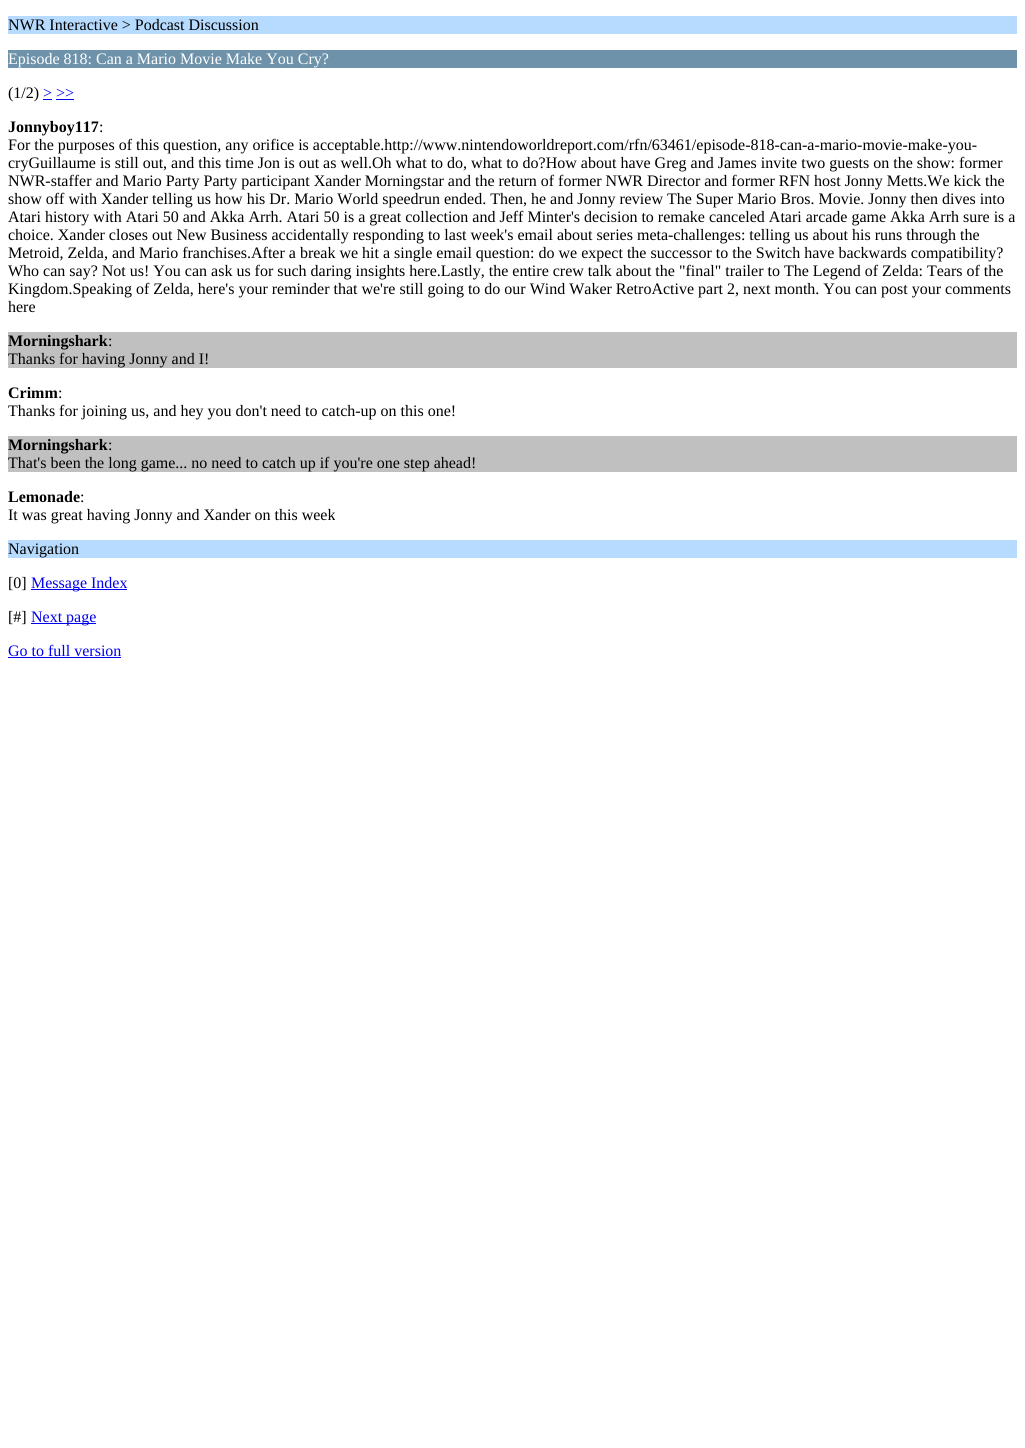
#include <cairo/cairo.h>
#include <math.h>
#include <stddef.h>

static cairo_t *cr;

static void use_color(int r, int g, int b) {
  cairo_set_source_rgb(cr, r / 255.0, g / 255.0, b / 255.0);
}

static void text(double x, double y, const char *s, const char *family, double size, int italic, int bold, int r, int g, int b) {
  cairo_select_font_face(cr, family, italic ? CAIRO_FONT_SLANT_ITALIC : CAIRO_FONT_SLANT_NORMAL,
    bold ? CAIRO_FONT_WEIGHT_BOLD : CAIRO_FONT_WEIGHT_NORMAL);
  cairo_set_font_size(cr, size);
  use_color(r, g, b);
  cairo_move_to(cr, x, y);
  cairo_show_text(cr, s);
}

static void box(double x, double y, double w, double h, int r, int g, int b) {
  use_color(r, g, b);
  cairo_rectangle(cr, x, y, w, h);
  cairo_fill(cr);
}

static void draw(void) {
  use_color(255, 255, 255);
  cairo_paint(cr);
  box(8, 16, 1009, 18, 182, 219, 255);
  box(8, 50, 1009, 18, 109, 146, 170);
  box(43, 99, 9, 1, 0, 0, 238);
  box(56, 99, 18, 1, 0, 0, 238);
  box(8, 332, 1009, 36, 192, 192, 192);
  box(8, 436, 1009, 36, 192, 192, 192);
  box(8, 540, 1009, 18, 182, 219, 255);
  box(31, 589, 96, 1, 0, 0, 238);
  box(31, 623, 65, 1, 0, 0, 238);
  box(8, 657, 113, 1, 0, 0, 238);
  text(8, 30, "NWR Interactive > Podcast Discussion", "Liberation Serif", 16, 0, 0, 0, 0, 0);
  text(8, 64, "Episode 818: Can a Mario Movie Make You Cry?", "Liberation Serif", 16, 0, 0, 255, 255, 255);
  text(8, 98, "(1/2)", "Liberation Serif", 16, 0, 0, 0, 0, 0);
  text(43, 98, "> >>", "Liberation Serif", 16, 0, 0, 0, 0, 238);
  text(8, 132, "Jonnyboy117", "Liberation Serif", 16, 0, 1, 0, 0, 0);
  text(99, 132, ":", "Liberation Serif", 16, 0, 0, 0, 0, 0);
  text(8, 150, "For the purposes of this question, any orifice is acceptable.http://www.nintendoworldreport.com/rfn/63461/episode-818-can-a-mario-movie-make-you-", "Liberation Serif", 16, 0, 0, 0, 0, 0);
  text(8, 168, "cryGuillaume is still out, and this time Jon is out as well.Oh what to do, what to do?How about have Greg and James invite two guests on the show: former", "Liberation Serif", 16, 0, 0, 0, 0, 0);
  text(8, 186, "NWR-staffer and Mario Party Party participant Xander Morningstar and the return of former NWR Director and former RFN host Jonny Metts.We kick the", "Liberation Serif", 16, 0, 0, 0, 0, 0);
  text(8, 204, "show off with Xander telling us how his Dr. Mario World speedrun ended. Then, he and Jonny review The Super Mario Bros. Movie. Jonny then dives into", "Liberation Serif", 16, 0, 0, 0, 0, 0);
  text(8, 222, "Atari history with Atari 50 and Akka Arrh. Atari 50 is a great collection and Jeff Minter's decision to remake canceled Atari arcade game Akka Arrh sure is a", "Liberation Serif", 16, 0, 0, 0, 0, 0);
  text(8, 240, "choice. Xander closes out New Business accidentally responding to last week's email about series meta-challenges: telling us about his runs through the", "Liberation Serif", 16, 0, 0, 0, 0, 0);
  text(8, 258, "Metroid, Zelda, and Mario franchises.After a break we hit a single email question: do we expect the successor to the Switch have backwards compatibility?", "Liberation Serif", 16, 0, 0, 0, 0, 0);
  text(8, 276, "Who can say? Not us! You can ask us for such daring insights here.Lastly, the entire crew talk about the \"final\" trailer to The Legend of Zelda: Tears of the", "Liberation Serif", 16, 0, 0, 0, 0, 0);
  text(8, 294, "Kingdom.Speaking of Zelda, here's your reminder that we're still going to do our Wind Waker RetroActive part 2, next month. You can post your comments", "Liberation Serif", 16, 0, 0, 0, 0, 0);
  text(8, 312, "here", "Liberation Serif", 16, 0, 0, 0, 0, 0);
  text(8, 346, "Morningshark", "Liberation Serif", 16, 0, 1, 0, 0, 0);
  text(108, 346, ":", "Liberation Serif", 16, 0, 0, 0, 0, 0);
  text(8, 364, "Thanks for having Jonny and I!", "Liberation Serif", 16, 0, 0, 0, 0, 0);
  text(8, 398, "Crimm", "Liberation Serif", 16, 0, 1, 0, 0, 0);
  text(58, 398, ":", "Liberation Serif", 16, 0, 0, 0, 0, 0);
  text(8, 416, "Thanks for joining us, and hey you don't need to catch-up on this one!", "Liberation Serif", 16, 0, 0, 0, 0, 0);
  text(8, 450, "Morningshark", "Liberation Serif", 16, 0, 1, 0, 0, 0);
  text(108, 450, ":", "Liberation Serif", 16, 0, 0, 0, 0, 0);
  text(8, 468, "That's been the long game... no need to catch up if you're one step ahead!", "Liberation Serif", 16, 0, 0, 0, 0, 0);
  text(8, 502, "Lemonade", "Liberation Serif", 16, 0, 1, 0, 0, 0);
  text(80, 502, ":", "Liberation Serif", 16, 0, 0, 0, 0, 0);
  text(8, 520, "It was great having Jonny and Xander on this week", "Liberation Serif", 16, 0, 0, 0, 0, 0);
  text(8, 554, "Navigation", "Liberation Serif", 16, 0, 0, 0, 0, 0);
  text(8, 588, "[0]", "Liberation Serif", 16, 0, 0, 0, 0, 0);
  text(31, 588, "Message Index", "Liberation Serif", 16, 0, 0, 0, 0, 238);
  text(8, 622, "[#]", "Liberation Serif", 16, 0, 0, 0, 0, 0);
  text(31, 622, "Next page", "Liberation Serif", 16, 0, 0, 0, 0, 238);
  text(8, 656, "Go to full version", "Liberation Serif", 16, 0, 0, 0, 0, 238);
}

int main(void) {
  cairo_surface_t *surface = cairo_image_surface_create(CAIRO_FORMAT_RGB24, 1025, 1448);
  cr = cairo_create(surface);
  cairo_font_options_t *options = cairo_font_options_create();
  cairo_font_options_set_hint_metrics(options, CAIRO_HINT_METRICS_OFF);
  cairo_font_options_set_hint_style(options, CAIRO_HINT_STYLE_NONE);
  cairo_set_font_options(cr, options);
  cairo_set_miter_limit(cr, 4);
  draw();
  cairo_surface_write_to_png(surface, "out.png");
  cairo_font_options_destroy(options);
  cairo_destroy(cr);
  cairo_surface_destroy(surface);
  return 0;
}
